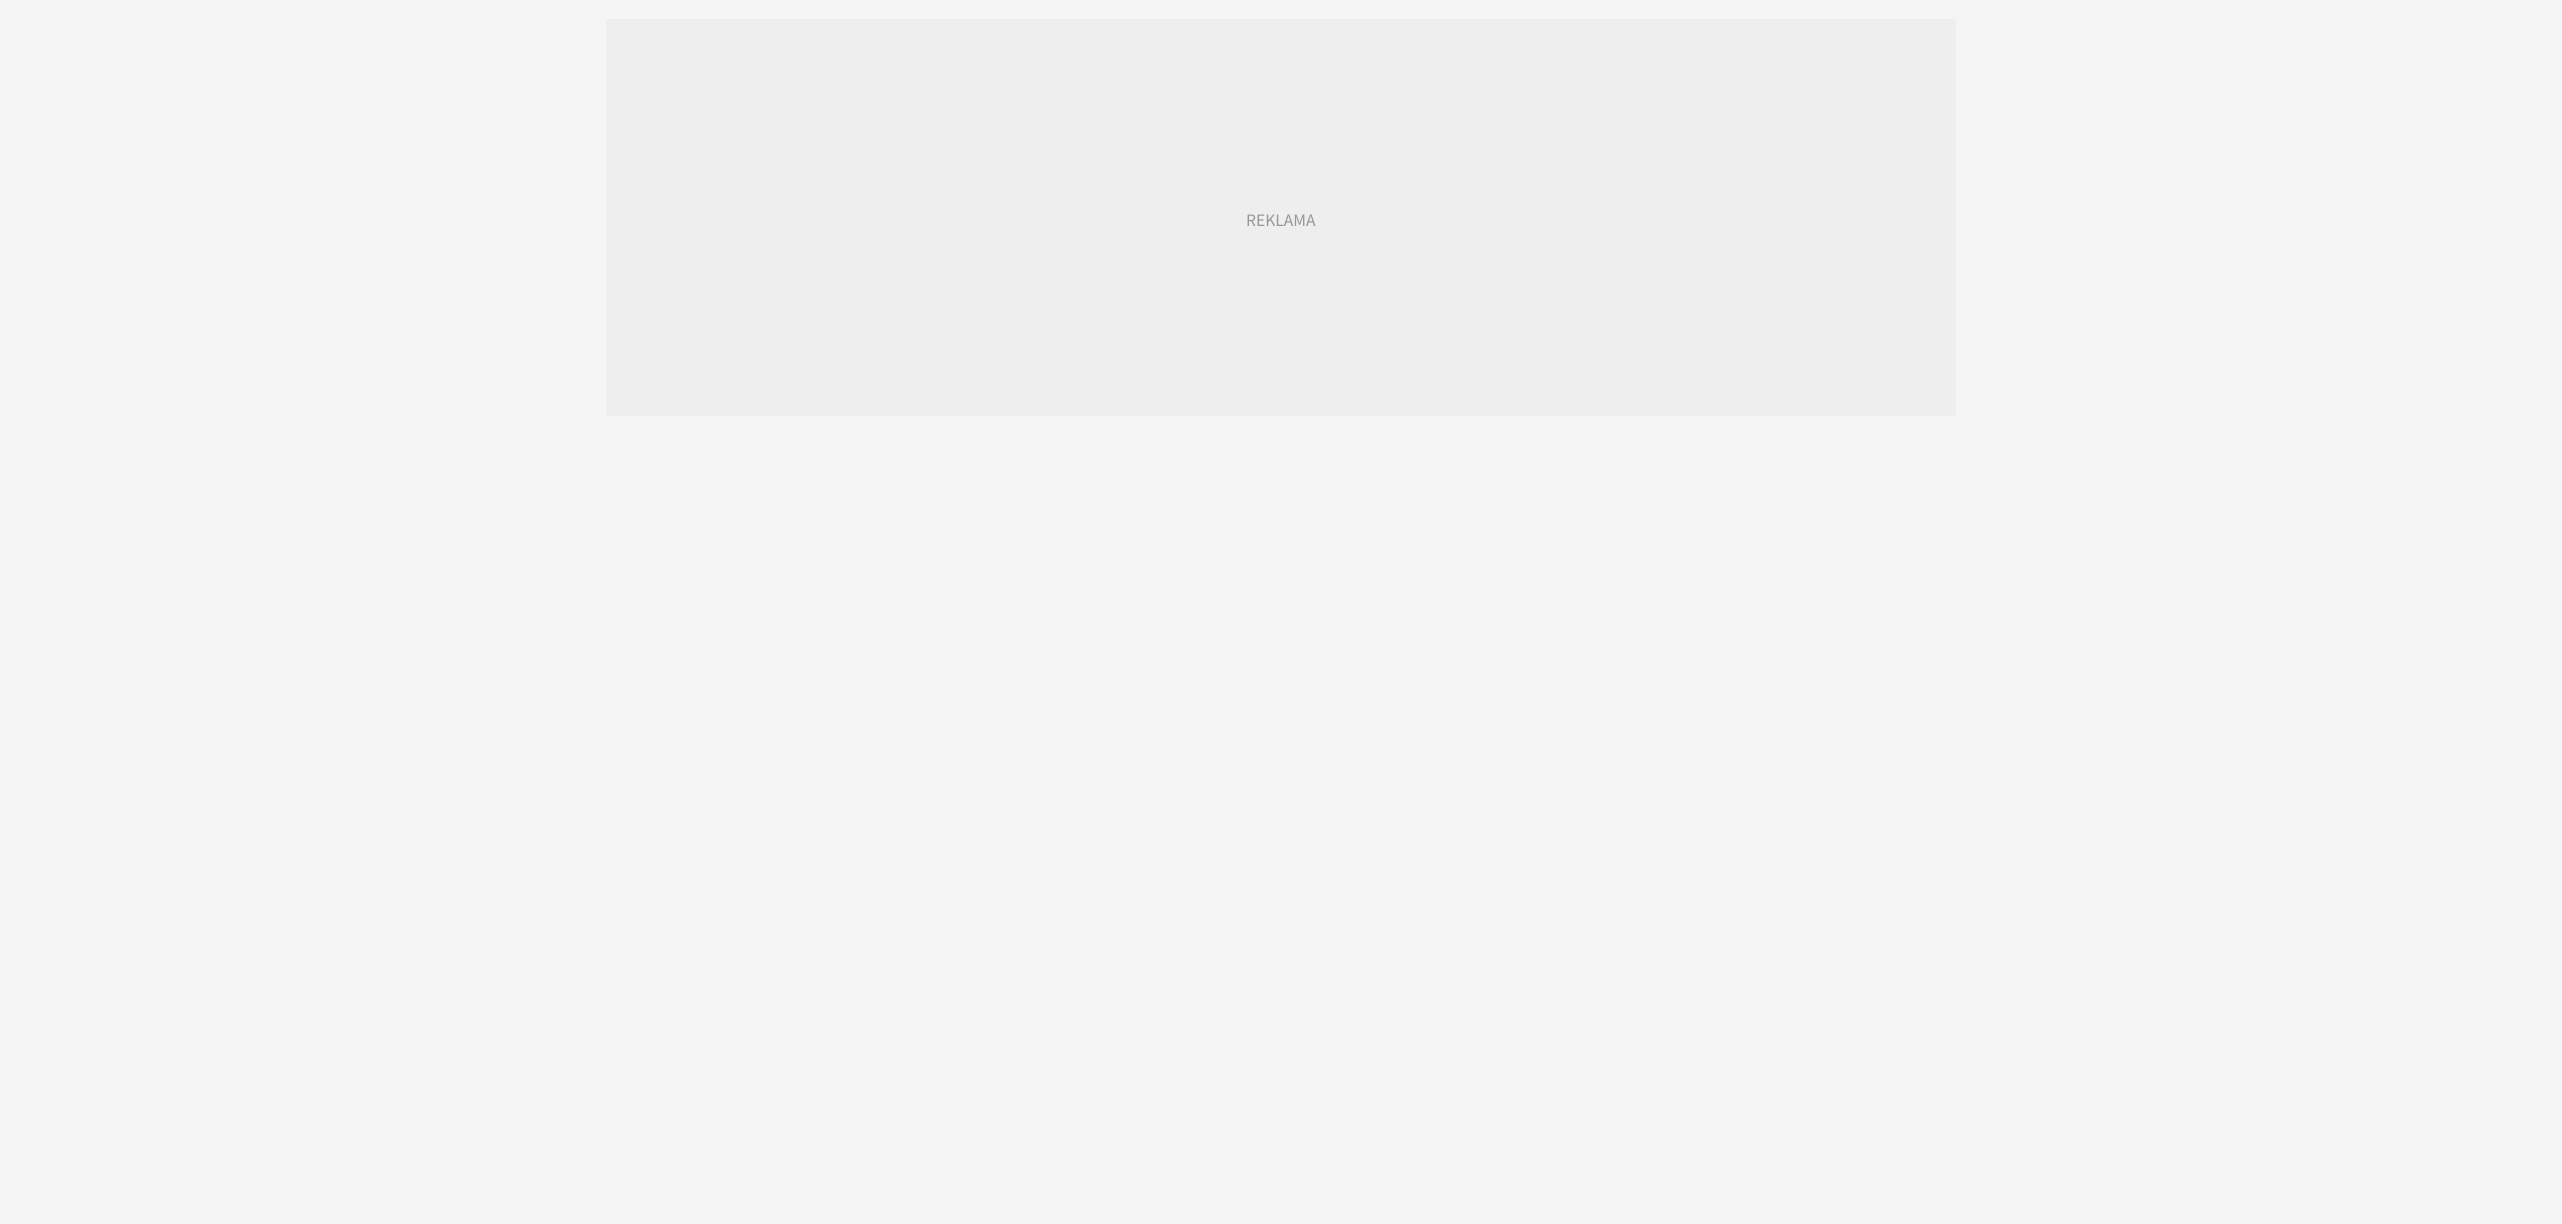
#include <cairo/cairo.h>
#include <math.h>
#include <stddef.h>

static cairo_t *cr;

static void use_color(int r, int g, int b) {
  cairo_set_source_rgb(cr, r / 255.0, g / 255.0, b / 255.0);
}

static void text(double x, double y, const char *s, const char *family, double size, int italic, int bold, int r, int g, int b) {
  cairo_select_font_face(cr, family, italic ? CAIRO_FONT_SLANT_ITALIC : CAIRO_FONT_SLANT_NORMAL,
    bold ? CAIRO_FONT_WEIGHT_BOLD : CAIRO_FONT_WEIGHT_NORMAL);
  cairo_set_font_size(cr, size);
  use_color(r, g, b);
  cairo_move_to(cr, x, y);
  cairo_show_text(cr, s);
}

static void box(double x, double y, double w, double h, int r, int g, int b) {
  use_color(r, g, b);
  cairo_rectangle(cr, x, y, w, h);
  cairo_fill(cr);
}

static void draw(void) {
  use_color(245, 245, 245);
  cairo_paint(cr);
  box(606, 19, 1350, 397, 239, 238, 239);
  text(1246, 226, "REKLAMA", "Source Sans Pro", 17.5, 0, 0, 151, 150, 151);
}

int main(void) {
  cairo_surface_t *surface = cairo_image_surface_create(CAIRO_FORMAT_RGB24, 2562, 1224);
  cr = cairo_create(surface);
  cairo_font_options_t *options = cairo_font_options_create();
  cairo_font_options_set_hint_metrics(options, CAIRO_HINT_METRICS_OFF);
  cairo_font_options_set_hint_style(options, CAIRO_HINT_STYLE_NONE);
  cairo_set_font_options(cr, options);
  cairo_set_miter_limit(cr, 4);
  draw();
  cairo_surface_write_to_png(surface, "out.png");
  cairo_font_options_destroy(options);
  cairo_destroy(cr);
  cairo_surface_destroy(surface);
  return 0;
}
